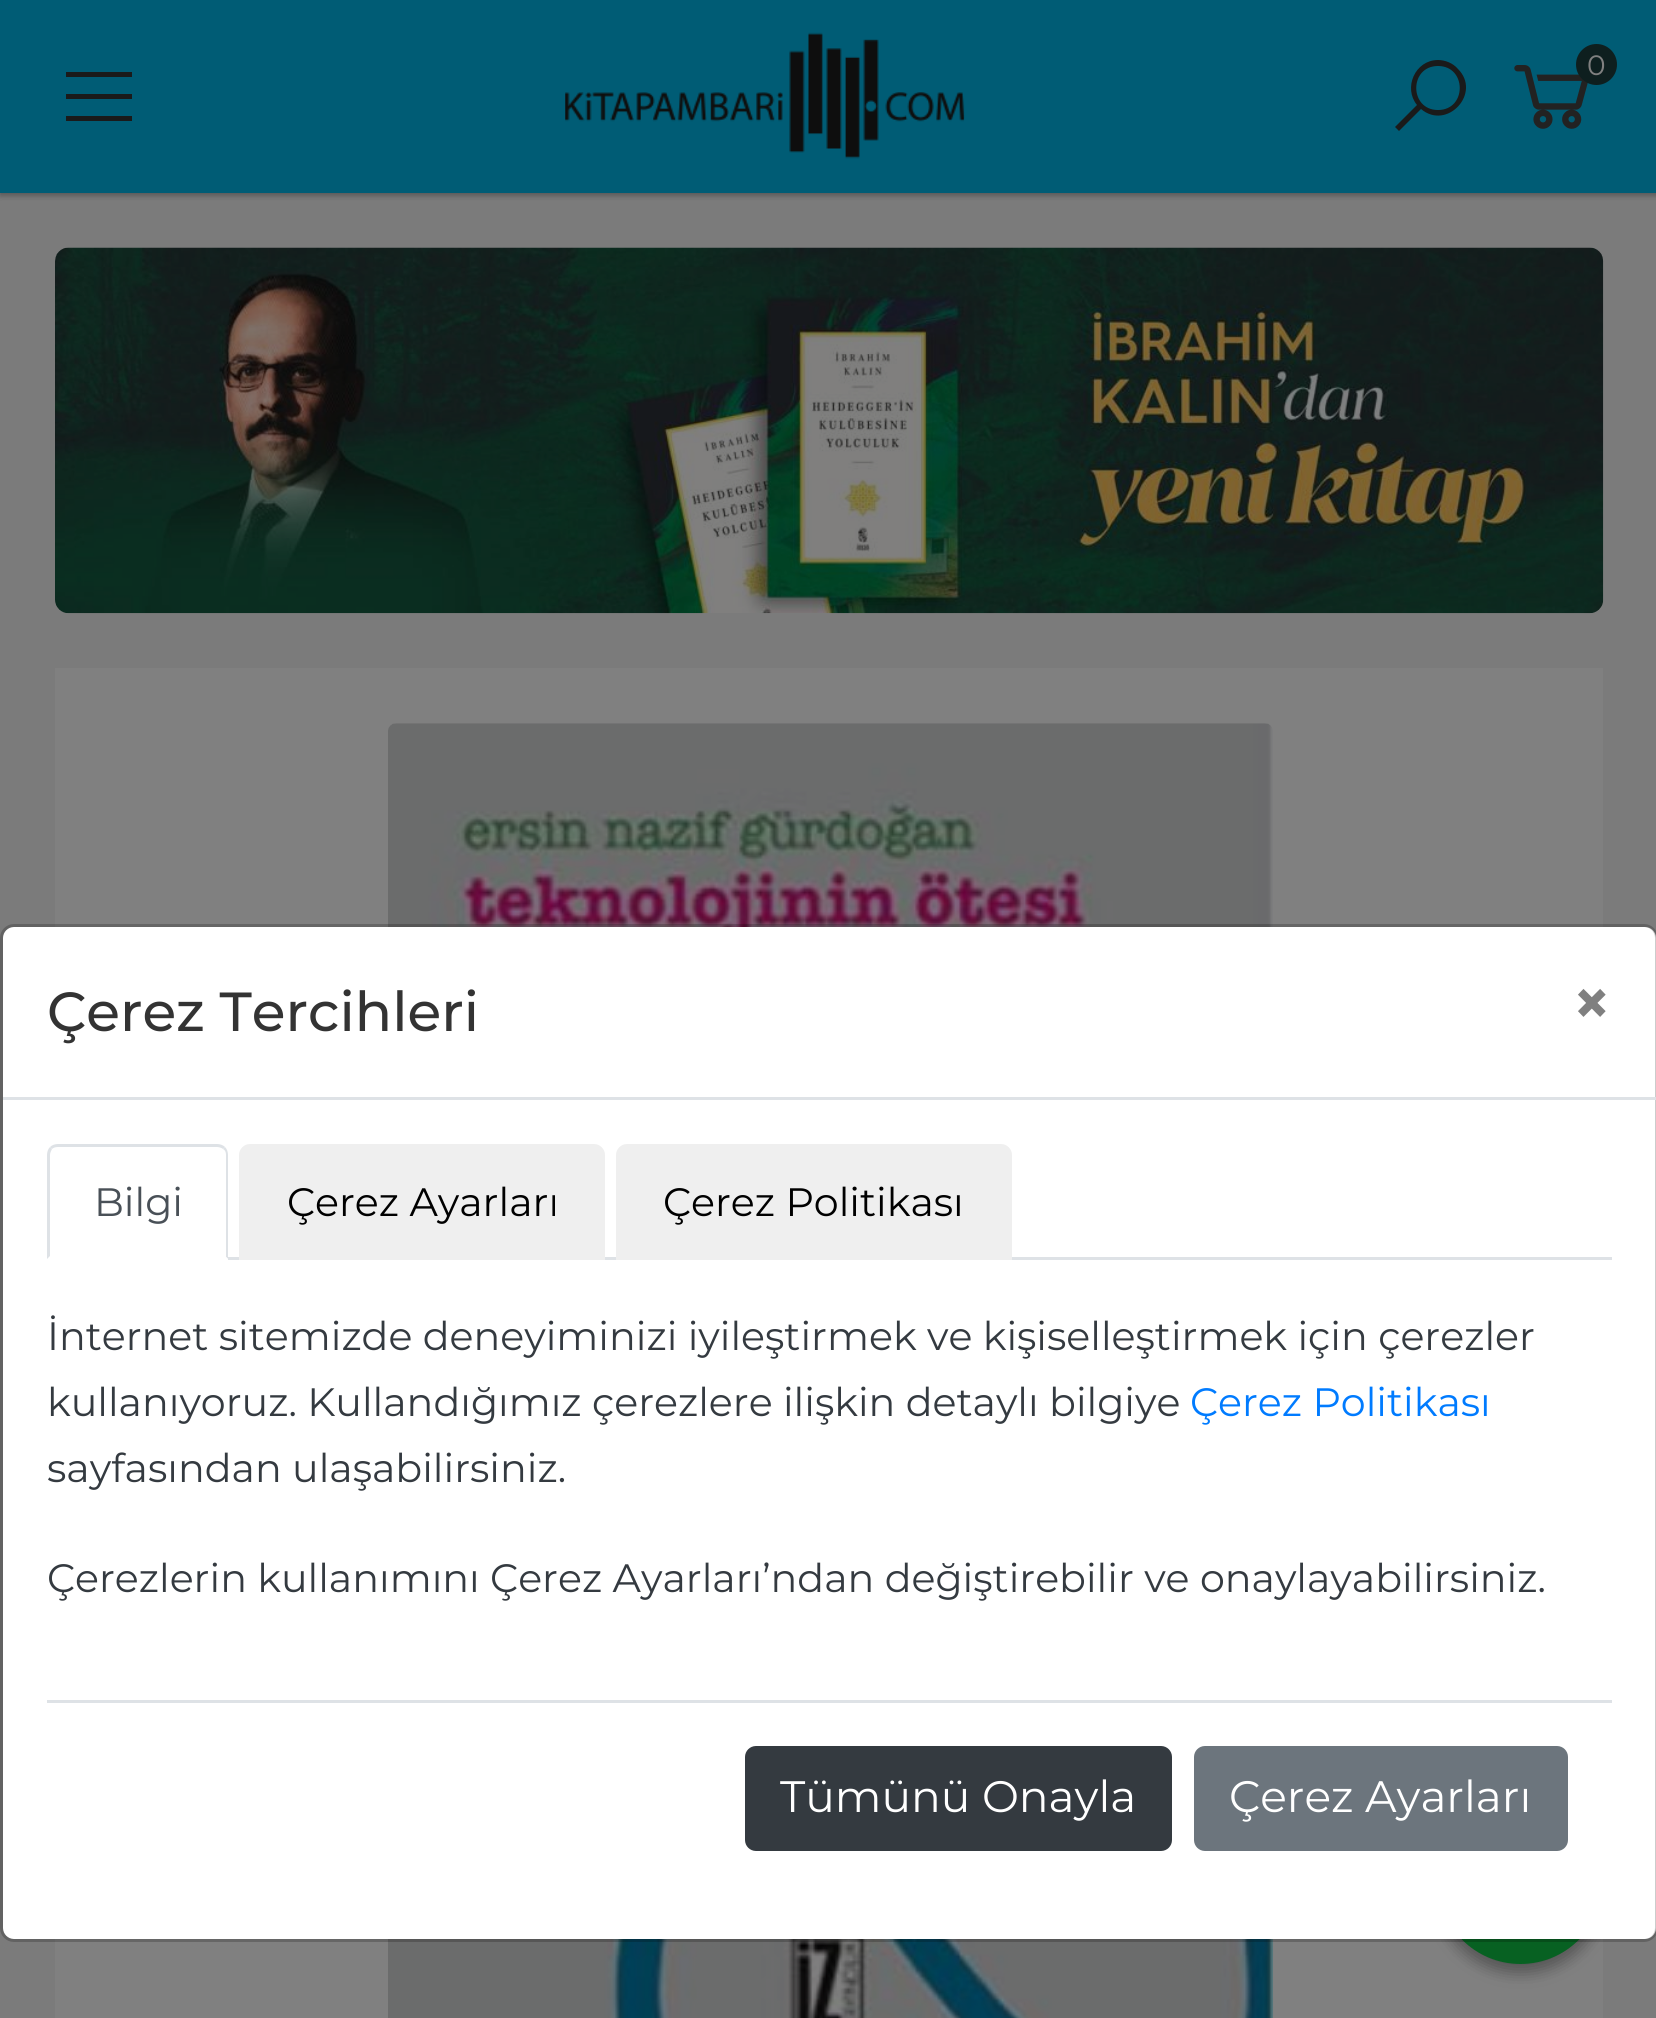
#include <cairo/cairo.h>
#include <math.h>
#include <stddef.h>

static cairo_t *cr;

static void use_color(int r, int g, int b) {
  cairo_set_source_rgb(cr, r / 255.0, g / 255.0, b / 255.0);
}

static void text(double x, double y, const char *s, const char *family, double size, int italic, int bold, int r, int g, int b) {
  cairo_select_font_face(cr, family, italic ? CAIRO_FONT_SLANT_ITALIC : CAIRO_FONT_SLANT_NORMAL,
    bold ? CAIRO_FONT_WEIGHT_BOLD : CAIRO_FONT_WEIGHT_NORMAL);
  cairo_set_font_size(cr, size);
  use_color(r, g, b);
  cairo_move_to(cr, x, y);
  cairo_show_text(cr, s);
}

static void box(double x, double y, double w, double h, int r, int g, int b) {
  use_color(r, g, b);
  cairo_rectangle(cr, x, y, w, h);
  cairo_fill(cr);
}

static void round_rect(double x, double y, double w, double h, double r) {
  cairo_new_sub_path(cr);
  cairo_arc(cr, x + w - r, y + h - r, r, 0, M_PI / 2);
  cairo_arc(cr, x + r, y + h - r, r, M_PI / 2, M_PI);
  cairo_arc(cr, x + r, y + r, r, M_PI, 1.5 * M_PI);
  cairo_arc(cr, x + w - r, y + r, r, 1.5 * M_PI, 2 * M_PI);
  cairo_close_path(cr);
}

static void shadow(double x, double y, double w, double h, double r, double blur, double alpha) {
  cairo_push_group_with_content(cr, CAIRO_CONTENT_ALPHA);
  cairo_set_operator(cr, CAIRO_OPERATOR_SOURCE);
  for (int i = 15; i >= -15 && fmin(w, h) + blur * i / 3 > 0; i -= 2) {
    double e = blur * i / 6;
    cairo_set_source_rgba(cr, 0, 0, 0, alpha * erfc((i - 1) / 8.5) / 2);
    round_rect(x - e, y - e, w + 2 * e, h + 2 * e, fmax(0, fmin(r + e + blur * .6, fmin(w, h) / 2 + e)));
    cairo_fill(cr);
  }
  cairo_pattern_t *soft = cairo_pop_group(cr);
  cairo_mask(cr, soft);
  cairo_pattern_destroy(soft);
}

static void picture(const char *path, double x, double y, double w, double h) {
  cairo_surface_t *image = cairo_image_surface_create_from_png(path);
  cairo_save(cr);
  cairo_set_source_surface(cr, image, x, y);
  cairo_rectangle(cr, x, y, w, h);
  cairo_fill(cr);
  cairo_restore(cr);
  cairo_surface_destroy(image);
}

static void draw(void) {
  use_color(123, 123, 123);
  cairo_paint(cr);
  use_color(0, 0, 0);
  shadow(0, 3, 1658, 192, 0, 3, 0.24);
  shadow(0, 3, 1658, 192, 0, 4, 0.12);
  box(0, 0, 1656, 193, 0, 92, 117);
  use_color(26, 26, 26);
  cairo_new_path(cr);
  cairo_move_to(cr, 66, 72);
  cairo_line_to(cr, 66, 77);
  cairo_line_to(cr, 132, 77);
  cairo_line_to(cr, 132, 72);
  cairo_close_path(cr);
  cairo_move_to(cr, 66, 94);
  cairo_line_to(cr, 66, 99);
  cairo_line_to(cr, 132, 99);
  cairo_line_to(cr, 132, 94);
  cairo_close_path(cr);
  cairo_move_to(cr, 66, 116);
  cairo_line_to(cr, 66, 121);
  cairo_line_to(cr, 132, 121);
  cairo_line_to(cr, 132, 116);
  cairo_close_path(cr);
  cairo_fill(cr);
  picture("img_01.png", 565, 32, 400, 127);
  cairo_new_path(cr);
  cairo_move_to(cr, 1438, 60);
  cairo_curve_to(cr, 1415, 60, 1403, 88, 1417, 105);
  cairo_line_to(cr, 1395, 127);
  cairo_line_to(cr, 1399, 131);
  cairo_line_to(cr, 1421, 109);
  cairo_curve_to(cr, 1447, 131, 1482, 93, 1458, 69);
  cairo_curve_to(cr, 1453, 63, 1445, 60, 1438, 60);
  cairo_close_path(cr);
  cairo_move_to(cr, 1438, 66);
  cairo_curve_to(cr, 1467, 66, 1467, 110, 1438, 110);
  cairo_curve_to(cr, 1409, 110, 1409, 66, 1438, 66);
  cairo_close_path(cr);
  cairo_fill(cr);
  picture("img_02.png", 1514, 65, 74, 64);
  use_color(14, 31, 31);
  cairo_arc(cr, 1596.5, 64.5, 20.5, 0, 2 * M_PI);
  cairo_fill(cr);
  picture("img_03.png", 55, 247, 1549, 367);
  box(55, 668, 1548, 1350, 128, 128, 128);
  picture("img_04.png", 388, 723, 886, 1295);
  use_color(0, 0, 0);
  shadow(1438, 1807, 165, 165, 82.5, 8, 0.23);
  shadow(1438, 1807, 165, 165, 82.5, 8, 0.16);
  use_color(7, 97, 34);
  cairo_arc(cr, 1520.5, 1881.5, 82.5, 0, 2 * M_PI);
  cairo_fill(cr);
  use_color(255, 255, 255);
  round_rect(3, 927, 1653, 1012, 11);
  cairo_fill(cr);
  round_rect(1.5, 925.5, 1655, 1015, 12.5);
  cairo_set_source_rgba(cr, 0, 0, 0, 0.2);
  cairo_set_line_width(cr, 3);
  cairo_stroke(cr);
  box(3, 1097, 1653, 3, 222, 226, 230);
  box(228, 1257, 1384, 3, 222, 226, 230);
  cairo_new_path(cr);
  cairo_move_to(cr, 58, 1144);
  cairo_curve_to(cr, 55, 1144, 52, 1145, 50, 1147);
  cairo_line_to(cr, 52, 1149);
  cairo_curve_to(cr, 53, 1148, 55, 1147, 58, 1147);
  cairo_line_to(cr, 217, 1147);
  cairo_curve_to(cr, 219, 1147, 222, 1148, 223, 1149);
  cairo_line_to(cr, 225, 1147);
  cairo_curve_to(cr, 223, 1145, 220, 1144, 217, 1144);
  cairo_close_path(cr);
  cairo_fill(cr);
  cairo_new_path(cr);
  cairo_move_to(cr, 225, 1147);
  cairo_curve_to(cr, 227, 1149, 228, 1152, 228, 1155);
  cairo_line_to(cr, 228, 1259);
  cairo_line_to(cr, 226, 1257);
  cairo_line_to(cr, 226, 1155);
  cairo_curve_to(cr, 226, 1152, 225, 1150, 223, 1149);
  cairo_close_path(cr);
  cairo_fill(cr);
  use_color(255, 255, 255);
  cairo_new_path(cr);
  cairo_move_to(cr, 47, 1260);
  cairo_line_to(cr, 50, 1256);
  cairo_line_to(cr, 50, 1257);
  cairo_line_to(cr, 226, 1257);
  cairo_line_to(cr, 228, 1259);
  cairo_close_path(cr);
  cairo_fill(cr);
  use_color(222, 226, 230);
  cairo_new_path(cr);
  cairo_move_to(cr, 50, 1147);
  cairo_curve_to(cr, 48, 1149, 47, 1152, 47, 1155);
  cairo_line_to(cr, 47, 1259);
  cairo_line_to(cr, 50, 1256);
  cairo_line_to(cr, 50, 1155);
  cairo_curve_to(cr, 50, 1153, 51, 1151, 52, 1149);
  cairo_close_path(cr);
  cairo_fill(cr);
  use_color(239, 239, 239);
  cairo_new_path(cr);
  cairo_move_to(cr, 250, 1144);
  cairo_line_to(cr, 594, 1144);
  cairo_curve_to(cr, 600, 1144, 605, 1149, 605, 1155);
  cairo_line_to(cr, 605, 1260);
  cairo_line_to(cr, 239, 1260);
  cairo_line_to(cr, 239, 1155);
  cairo_curve_to(cr, 239, 1149, 244, 1144, 250, 1144);
  cairo_close_path(cr);
  cairo_fill(cr);
  cairo_new_path(cr);
  cairo_move_to(cr, 627, 1144);
  cairo_line_to(cr, 1001, 1144);
  cairo_curve_to(cr, 1007, 1144, 1012, 1149, 1012, 1155);
  cairo_line_to(cr, 1012, 1260);
  cairo_line_to(cr, 616, 1260);
  cairo_line_to(cr, 616, 1155);
  cairo_curve_to(cr, 616, 1149, 621, 1144, 627, 1144);
  cairo_close_path(cr);
  cairo_fill(cr);
  box(47, 1700, 1565, 3, 222, 226, 230);
  use_color(52, 58, 64);
  round_rect(746.5, 1747.5, 424, 102, 9.5);
  cairo_fill_preserve(cr);
  cairo_stroke(cr);
  use_color(108, 117, 125);
  round_rect(1195.5, 1747.5, 371, 102, 9.5);
  cairo_fill_preserve(cr);
  cairo_stroke(cr);
  text(1587, 75, "0", "Montserrat", 28, 0, 0, 128, 128, 128);
  text(47, 1031, "Çerez Tercihleri", "Montserrat Medium", 55, 0, 0, 51, 51, 51);
  text(1572, 1026, "×", "Montserrat", 66, 0, 1, 128, 128, 128);
  text(94, 1216, "Bilgi", "Montserrat", 39.6, 0, 0, 73, 80, 87);
  text(287, 1216, "Çerez Ayarları", "Montserrat", 39.6, 0, 0, 0, 0, 0);
  text(663, 1216, "Çerez Politikası", "Montserrat", 39.6, 0, 0, 0, 0, 0);
  text(47, 1350, "İnternet sitemizde deneyiminizi iyileştirmek ve kişiselleştirmek için çerezler", "Montserrat", 39.6, 0, 0, 52, 58, 64);
  text(47, 1416, "kullanıyoruz. Kullandığımız çerezlere ilişkin detaylı bilgiye", "Montserrat", 39.6, 0, 0, 52, 58, 64);
  text(1190, 1416, "Çerez Politikası", "Montserrat", 39.6, 0, 0, 0, 123, 255);
  text(47, 1482, "sayfasından ulaşabilirsiniz.", "Montserrat", 39.6, 0, 0, 52, 58, 64);
  text(47, 1592, "Çerezlerin kullanımını Çerez Ayarları’ndan değiştirebilir ve onaylayabilirsiniz.", "Montserrat", 39.6, 0, 0, 52, 58, 64);
  text(780, 1812, "Tümünü Onayla", "Montserrat", 44, 0, 0, 255, 255, 255);
  text(1229, 1812, "Çerez Ayarları", "Montserrat", 44, 0, 0, 255, 255, 255);
}

int main(void) {
  cairo_surface_t *surface = cairo_image_surface_create(CAIRO_FORMAT_RGB24, 1656, 2018);
  cr = cairo_create(surface);
  cairo_font_options_t *options = cairo_font_options_create();
  cairo_font_options_set_hint_metrics(options, CAIRO_HINT_METRICS_OFF);
  cairo_font_options_set_hint_style(options, CAIRO_HINT_STYLE_NONE);
  cairo_set_font_options(cr, options);
  cairo_set_miter_limit(cr, 4);
  draw();
  cairo_surface_write_to_png(surface, "out.png");
  cairo_font_options_destroy(options);
  cairo_destroy(cr);
  cairo_surface_destroy(surface);
  return 0;
}
